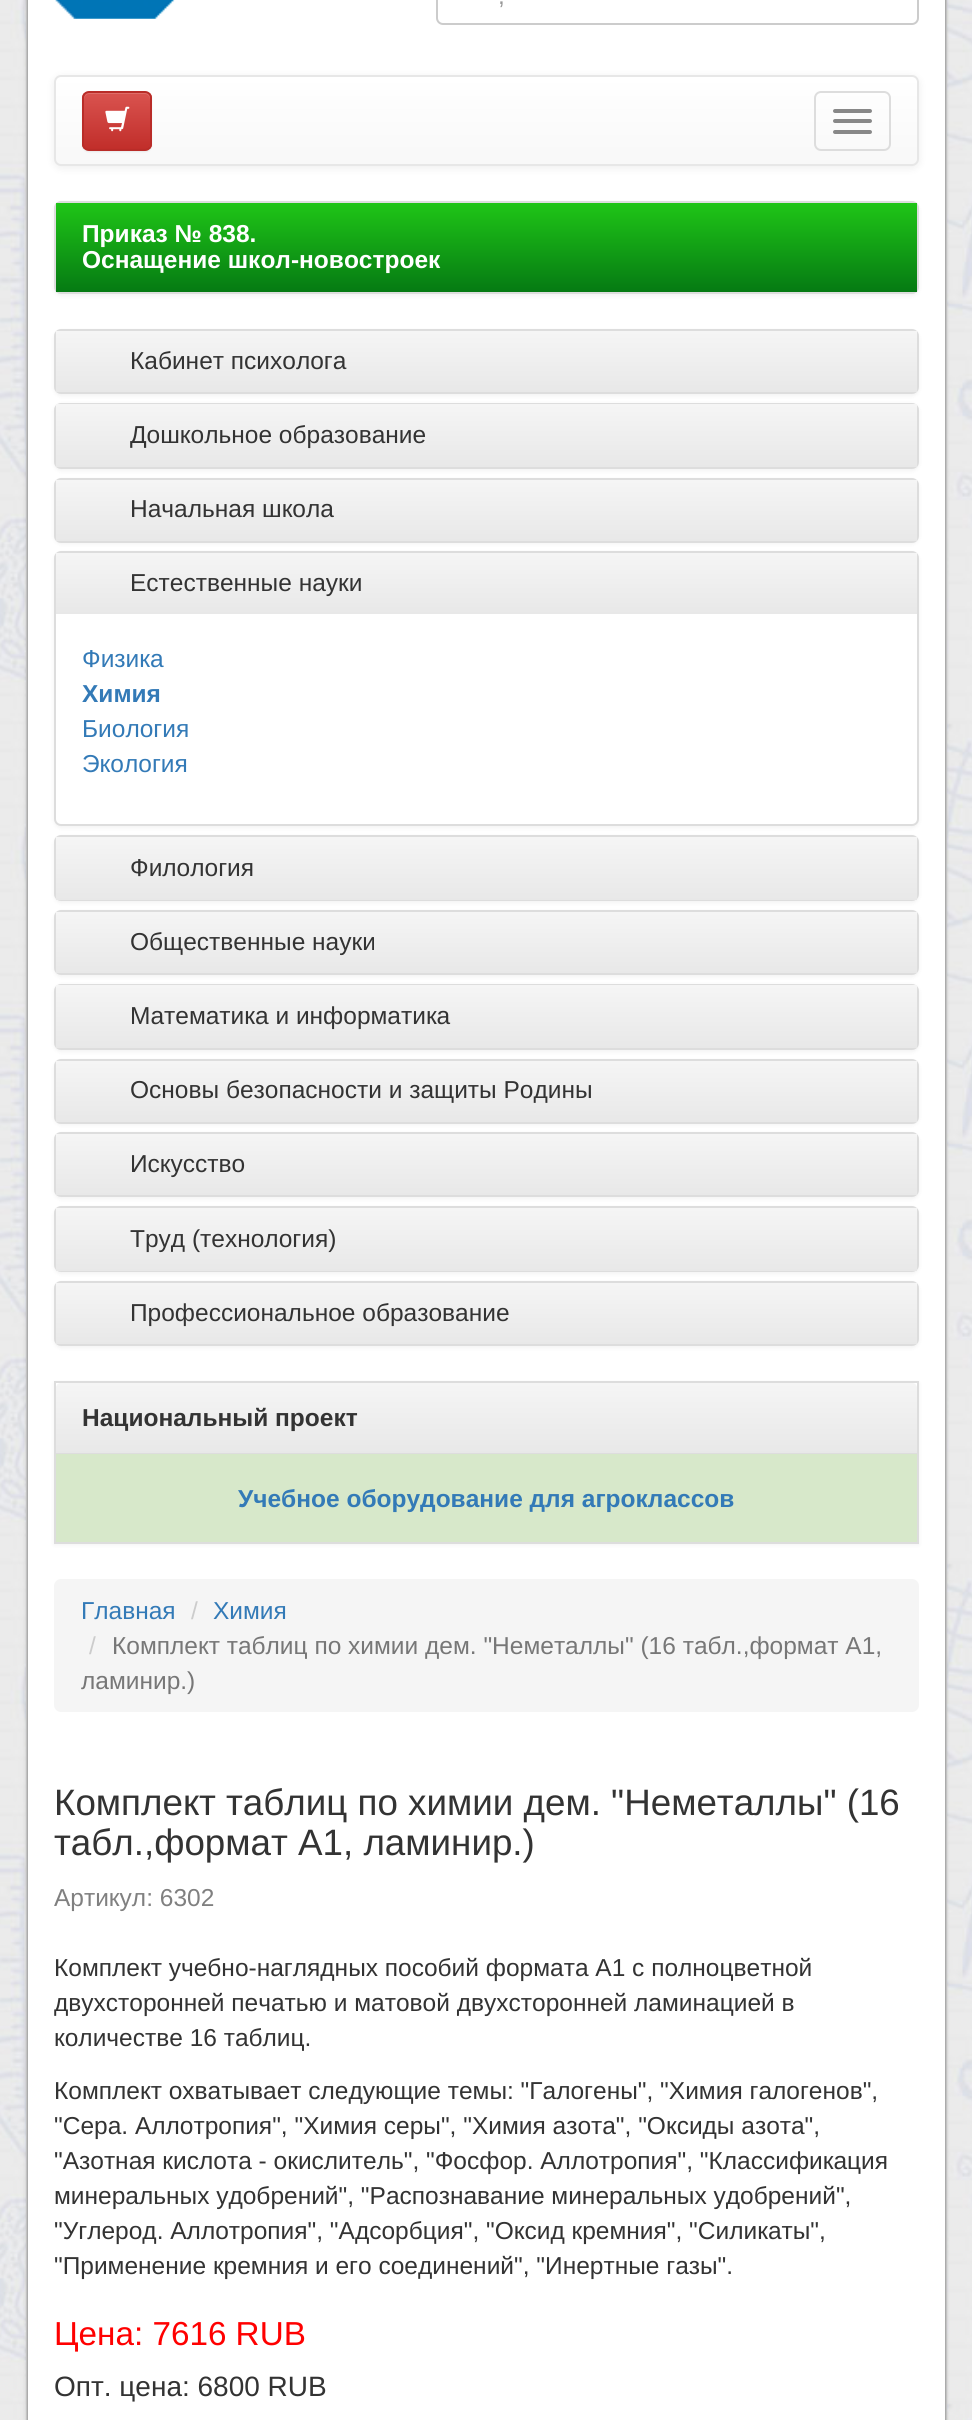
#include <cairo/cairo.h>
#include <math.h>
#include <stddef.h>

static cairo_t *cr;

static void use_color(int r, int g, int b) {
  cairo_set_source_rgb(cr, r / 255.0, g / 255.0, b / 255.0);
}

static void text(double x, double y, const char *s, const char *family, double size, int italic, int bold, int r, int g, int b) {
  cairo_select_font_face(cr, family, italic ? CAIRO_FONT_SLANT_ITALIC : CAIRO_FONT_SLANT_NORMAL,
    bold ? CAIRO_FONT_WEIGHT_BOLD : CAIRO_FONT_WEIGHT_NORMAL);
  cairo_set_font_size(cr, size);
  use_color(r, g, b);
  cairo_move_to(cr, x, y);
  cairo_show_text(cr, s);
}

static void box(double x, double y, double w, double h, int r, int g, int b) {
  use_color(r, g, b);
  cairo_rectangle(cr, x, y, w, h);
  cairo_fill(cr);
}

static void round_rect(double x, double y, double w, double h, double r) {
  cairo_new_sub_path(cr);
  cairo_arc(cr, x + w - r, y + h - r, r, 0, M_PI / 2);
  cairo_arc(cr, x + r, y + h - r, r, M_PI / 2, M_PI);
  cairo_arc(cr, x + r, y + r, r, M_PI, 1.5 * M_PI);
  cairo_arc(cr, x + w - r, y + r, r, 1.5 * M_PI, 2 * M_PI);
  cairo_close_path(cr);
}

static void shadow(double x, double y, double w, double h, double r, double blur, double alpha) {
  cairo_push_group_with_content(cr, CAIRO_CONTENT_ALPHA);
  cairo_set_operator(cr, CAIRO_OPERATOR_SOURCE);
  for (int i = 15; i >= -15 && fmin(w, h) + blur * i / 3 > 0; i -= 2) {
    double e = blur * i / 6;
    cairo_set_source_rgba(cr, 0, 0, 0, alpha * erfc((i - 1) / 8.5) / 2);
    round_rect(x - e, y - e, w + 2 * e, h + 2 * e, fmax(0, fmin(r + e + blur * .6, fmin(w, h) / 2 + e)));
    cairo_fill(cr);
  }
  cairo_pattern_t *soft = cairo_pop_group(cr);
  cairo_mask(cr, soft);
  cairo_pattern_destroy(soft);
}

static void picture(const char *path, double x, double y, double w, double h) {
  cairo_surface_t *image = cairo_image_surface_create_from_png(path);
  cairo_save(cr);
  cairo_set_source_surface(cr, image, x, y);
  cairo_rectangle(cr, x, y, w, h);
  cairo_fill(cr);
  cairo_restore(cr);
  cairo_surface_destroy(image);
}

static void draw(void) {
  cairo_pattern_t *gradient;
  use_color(255, 255, 255);
  cairo_paint(cr);
  picture("img_01.png", 0, 0, 972, 2420);
  use_color(255, 255, 255);
  cairo_rectangle(cr, 27, -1, 919, 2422);
  cairo_fill_preserve(cr);
  use_color(221, 221, 221);
  cairo_stroke(cr);
  cairo_save(cr);
  cairo_set_fill_rule(cr, CAIRO_FILL_RULE_EVEN_ODD);
  cairo_new_path(cr);
  cairo_move_to(cr, 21, 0);
  cairo_line_to(cr, 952, 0);
  cairo_line_to(cr, 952, 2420);
  cairo_line_to(cr, 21, 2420);
  cairo_close_path(cr);
  cairo_move_to(cr, 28, -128);
  cairo_line_to(cr, 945, -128);
  cairo_line_to(cr, 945, 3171);
  cairo_line_to(cr, 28, 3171);
  cairo_close_path(cr);
  cairo_clip(cr);
  use_color(102, 102, 102);
  shadow(28, -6, 917, 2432, 0, 2, 1);
  cairo_restore(cr);
  picture("img_02.png", 55, 0, 120, 19);
  round_rect(437, -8, 481, 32, 6);
  use_color(204, 204, 204);
  cairo_stroke(cr);
  use_color(0, 0, 0);
  shadow(54, 77, 865, 91, 7, 4.5, 0.07);
  cairo_save(cr);
  round_rect(54, 75, 865, 91, 7);
  cairo_clip(cr);
  gradient = cairo_pattern_create_linear(487, 77, 487, 165);
  cairo_pattern_add_color_stop_rgba(gradient, 0, 1, 1, 1, 1);
  cairo_pattern_add_color_stop_rgba(gradient, 1, 0.973, 0.973, 0.973, 1);
  cairo_set_source(cr, gradient);
  cairo_pattern_destroy(gradient);
  cairo_rectangle(cr, 54, 77, 865, 88);
  cairo_fill(cr);
  cairo_restore(cr);
  round_rect(55, 76, 863, 89, 6);
  use_color(231, 231, 231);
  cairo_stroke(cr);
  use_color(0, 0, 0);
  shadow(82, 93, 70, 59, 7, 1, 0.07);
  cairo_save(cr);
  round_rect(82, 91, 70, 60, 7);
  cairo_clip(cr);
  gradient = cairo_pattern_create_linear(117, 93, 117, 149);
  cairo_pattern_add_color_stop_rgba(gradient, 0, 0.851, 0.325, 0.31, 1);
  cairo_pattern_add_color_stop_rgba(gradient, 1, 0.757, 0.18, 0.165, 1);
  cairo_set_source(cr, gradient);
  cairo_pattern_destroy(gradient);
  cairo_rectangle(cr, 82, 93, 70, 56);
  cairo_fill(cr);
  cairo_restore(cr);
  cairo_set_source_rgba(cr, 1, 1, 1, 0.15);
  cairo_new_path(cr);
  cairo_move_to(cr, 89, 94);
  cairo_line_to(cr, 145, 94);
  cairo_curve_to(cr, 148, 94, 150, 97, 150, 100);
  cairo_line_to(cr, 150, 145);
  cairo_line_to(cr, 149, 148);
  cairo_curve_to(cr, 150, 147, 151, 145, 151, 144);
  cairo_line_to(cr, 151, 98);
  cairo_curve_to(cr, 151, 95, 149, 93, 146, 93);
  cairo_line_to(cr, 89, 93);
  cairo_curve_to(cr, 86, 93, 84, 95, 84, 98);
  cairo_line_to(cr, 84, 100);
  cairo_curve_to(cr, 84, 97, 86, 94, 89, 94);
  cairo_close_path(cr);
  cairo_fill(cr);
  round_rect(83, 92, 68, 58, 6);
  use_color(185, 44, 40);
  cairo_stroke(cr);
  picture("img_03.png", 105, 106, 25, 26);
  round_rect(815, 92, 75, 58, 6);
  use_color(221, 221, 221);
  cairo_stroke(cr);
  use_color(136, 136, 136);
  round_rect(833, 109, 39, 4, 2);
  cairo_fill(cr);
  round_rect(833, 119, 39, 4, 2);
  cairo_fill(cr);
  round_rect(833, 130, 39, 4, 2);
  cairo_fill(cr);
  use_color(0, 0, 0);
  shadow(54, 203, 865, 93, 7, 2, 0.05);
  round_rect(55, 202, 863, 91, 6);
  use_color(221, 221, 221);
  cairo_stroke(cr);
  gradient = cairo_pattern_create_linear(487, 203, 487, 292);
  cairo_pattern_add_color_stop_rgba(gradient, 0, 0.122, 0.773, 0.09, 1);
  cairo_pattern_add_color_stop_rgba(gradient, 1, 0.02, 0.478, 0.075, 1);
  cairo_set_source(cr, gradient);
  cairo_pattern_destroy(gradient);
  cairo_rectangle(cr, 56, 203, 861, 89);
  cairo_fill(cr);
  use_color(0, 0, 0);
  shadow(54, 331, 865, 65, 7, 2, 0.05);
  round_rect(55, 330, 863, 63, 6);
  use_color(221, 221, 221);
  cairo_stroke(cr);
  gradient = cairo_pattern_create_linear(487, 331, 487, 392);
  cairo_pattern_add_color_stop_rgba(gradient, 0, 0.961, 0.961, 0.961, 1);
  cairo_pattern_add_color_stop_rgba(gradient, 1, 0.91, 0.91, 0.91, 1);
  cairo_set_source(cr, gradient);
  cairo_pattern_destroy(gradient);
  cairo_rectangle(cr, 56, 331, 861, 61);
  cairo_fill(cr);
  use_color(0, 0, 0);
  shadow(54, 404, 865, 67, 7, 2, 0.05);
  round_rect(55, 404, 863, 64, 6);
  use_color(221, 221, 221);
  cairo_stroke(cr);
  gradient = cairo_pattern_create_linear(487, 404, 487, 467);
  cairo_pattern_add_color_stop_rgba(gradient, 0, 0.961, 0.961, 0.961, 1);
  cairo_pattern_add_color_stop_rgba(gradient, 1, 0.91, 0.91, 0.91, 1);
  cairo_set_source(cr, gradient);
  cairo_pattern_destroy(gradient);
  cairo_rectangle(cr, 56, 404, 861, 63);
  cairo_fill(cr);
  use_color(0, 0, 0);
  shadow(54, 480, 865, 64, 7, 2, 0.05);
  round_rect(55, 479, 863, 63, 6);
  use_color(221, 221, 221);
  cairo_stroke(cr);
  gradient = cairo_pattern_create_linear(487, 480, 487, 541);
  cairo_pattern_add_color_stop_rgba(gradient, 0, 0.961, 0.961, 0.961, 1);
  cairo_pattern_add_color_stop_rgba(gradient, 1, 0.91, 0.91, 0.91, 1);
  cairo_set_source(cr, gradient);
  cairo_pattern_destroy(gradient);
  cairo_rectangle(cr, 56, 480, 861, 61);
  cairo_fill(cr);
  use_color(0, 0, 0);
  shadow(54, 553, 865, 275, 7, 2, 0.05);
  use_color(255, 255, 255);
  round_rect(55, 552, 863, 273, 6);
  cairo_fill_preserve(cr);
  use_color(221, 221, 221);
  cairo_stroke(cr);
  gradient = cairo_pattern_create_linear(487, 553, 487, 614);
  cairo_pattern_add_color_stop_rgba(gradient, 0, 0.961, 0.961, 0.961, 1);
  cairo_pattern_add_color_stop_rgba(gradient, 1, 0.91, 0.91, 0.91, 1);
  cairo_set_source(cr, gradient);
  cairo_pattern_destroy(gradient);
  cairo_rectangle(cr, 56, 553, 861, 61);
  cairo_fill(cr);
  use_color(0, 0, 0);
  shadow(54, 837, 865, 66, 7, 2, 0.05);
  round_rect(55, 836, 863, 64, 6);
  use_color(221, 221, 221);
  cairo_stroke(cr);
  gradient = cairo_pattern_create_linear(487, 837, 487, 900);
  cairo_pattern_add_color_stop_rgba(gradient, 0, 0.961, 0.961, 0.961, 1);
  cairo_pattern_add_color_stop_rgba(gradient, 1, 0.91, 0.91, 0.91, 1);
  cairo_set_source(cr, gradient);
  cairo_pattern_destroy(gradient);
  cairo_rectangle(cr, 56, 837, 861, 63);
  cairo_fill(cr);
  use_color(0, 0, 0);
  shadow(54, 912, 865, 65, 7, 2, 0.05);
  round_rect(55, 911, 863, 63, 6);
  use_color(221, 221, 221);
  cairo_stroke(cr);
  gradient = cairo_pattern_create_linear(487, 912, 487, 973);
  cairo_pattern_add_color_stop_rgba(gradient, 0, 0.961, 0.961, 0.961, 1);
  cairo_pattern_add_color_stop_rgba(gradient, 1, 0.91, 0.91, 0.91, 1);
  cairo_set_source(cr, gradient);
  cairo_pattern_destroy(gradient);
  cairo_rectangle(cr, 56, 912, 861, 61);
  cairo_fill(cr);
  use_color(0, 0, 0);
  shadow(54, 985, 865, 67, 7, 2, 0.05);
  round_rect(55, 985, 863, 64, 6);
  use_color(221, 221, 221);
  cairo_stroke(cr);
  gradient = cairo_pattern_create_linear(487, 985, 487, 1048);
  cairo_pattern_add_color_stop_rgba(gradient, 0, 0.961, 0.961, 0.961, 1);
  cairo_pattern_add_color_stop_rgba(gradient, 1, 0.91, 0.91, 0.91, 1);
  cairo_set_source(cr, gradient);
  cairo_pattern_destroy(gradient);
  cairo_rectangle(cr, 56, 985, 861, 63);
  cairo_fill(cr);
  use_color(0, 0, 0);
  shadow(54, 1061, 865, 64, 7, 2, 0.05);
  round_rect(55, 1060, 863, 63, 6);
  use_color(221, 221, 221);
  cairo_stroke(cr);
  gradient = cairo_pattern_create_linear(487, 1061, 487, 1122);
  cairo_pattern_add_color_stop_rgba(gradient, 0, 0.961, 0.961, 0.961, 1);
  cairo_pattern_add_color_stop_rgba(gradient, 1, 0.91, 0.91, 0.91, 1);
  cairo_set_source(cr, gradient);
  cairo_pattern_destroy(gradient);
  cairo_rectangle(cr, 56, 1061, 861, 61);
  cairo_fill(cr);
  use_color(0, 0, 0);
  shadow(54, 1134, 865, 65, 7, 2, 0.05);
  round_rect(55, 1133, 863, 63, 6);
  use_color(221, 221, 221);
  cairo_stroke(cr);
  gradient = cairo_pattern_create_linear(487, 1134, 487, 1195);
  cairo_pattern_add_color_stop_rgba(gradient, 0, 0.961, 0.961, 0.961, 1);
  cairo_pattern_add_color_stop_rgba(gradient, 1, 0.91, 0.91, 0.91, 1);
  cairo_set_source(cr, gradient);
  cairo_pattern_destroy(gradient);
  cairo_rectangle(cr, 56, 1134, 861, 61);
  cairo_fill(cr);
  use_color(0, 0, 0);
  shadow(54, 1208, 865, 66, 7, 2, 0.05);
  round_rect(55, 1207, 863, 64, 6);
  use_color(221, 221, 221);
  cairo_stroke(cr);
  gradient = cairo_pattern_create_linear(487, 1208, 487, 1271);
  cairo_pattern_add_color_stop_rgba(gradient, 0, 0.961, 0.961, 0.961, 1);
  cairo_pattern_add_color_stop_rgba(gradient, 1, 0.91, 0.91, 0.91, 1);
  cairo_set_source(cr, gradient);
  cairo_pattern_destroy(gradient);
  cairo_rectangle(cr, 56, 1208, 861, 63);
  cairo_fill(cr);
  use_color(0, 0, 0);
  shadow(54, 1283, 865, 65, 7, 2, 0.05);
  round_rect(55, 1282, 863, 63, 6);
  use_color(221, 221, 221);
  cairo_stroke(cr);
  gradient = cairo_pattern_create_linear(487, 1283, 487, 1344);
  cairo_pattern_add_color_stop_rgba(gradient, 0, 0.961, 0.961, 0.961, 1);
  cairo_pattern_add_color_stop_rgba(gradient, 1, 0.91, 0.91, 0.91, 1);
  cairo_set_source(cr, gradient);
  cairo_pattern_destroy(gradient);
  cairo_rectangle(cr, 56, 1283, 861, 61);
  cairo_fill(cr);
  use_color(0, 0, 0);
  shadow(54, 1383, 865, 162, 0, 2, 0.05);
  box(56, 1383, 861, 5, 255, 255, 255);
  cairo_rectangle(cr, 55, 1382, 863, 161);
  use_color(221, 221, 221);
  cairo_stroke(cr);
  gradient = cairo_pattern_create_linear(487, 1383, 487, 1453);
  cairo_pattern_add_color_stop_rgba(gradient, 0, 0.961, 0.961, 0.961, 1);
  cairo_pattern_add_color_stop_rgba(gradient, 1, 0.91, 0.91, 0.91, 1);
  cairo_set_source(cr, gradient);
  cairo_pattern_destroy(gradient);
  cairo_new_path(cr);
  cairo_move_to(cr, 61, 1383);
  cairo_line_to(cr, 912, 1383);
  cairo_curve_to(cr, 915, 1383, 917, 1385, 917, 1388);
  cairo_line_to(cr, 917, 1453);
  cairo_line_to(cr, 56, 1453);
  cairo_line_to(cr, 56, 1388);
  cairo_curve_to(cr, 56, 1385, 58, 1383, 61, 1383);
  cairo_close_path(cr);
  cairo_fill(cr);
  box(56, 1453, 861, 1, 221, 221, 221);
  box(56, 1454, 861, 88, 215, 232, 202);
  use_color(245, 245, 245);
  round_rect(54, 1579, 865, 133, 7);
  cairo_fill(cr);
  text(498, 4, ",", "Liberation Sans", 24.5, 0, 0, 153, 153, 153);
  text(82, 242, "Приказ № 838.", "Liberation Sans", 24.5, 0, 1, 255, 255, 255);
  text(82, 268, "Оснащение школ-новостроек", "Liberation Sans", 24.5, 0, 1, 255, 255, 255);
  text(130, 369, "Кабинет психолога", "Liberation Sans", 24.5, 0, 0, 51, 51, 51);
  text(130, 443, "Дошкольное образование", "Liberation Sans", 24.5, 0, 0, 51, 51, 51);
  text(130, 517, "Начальная школа", "Liberation Sans", 24.5, 0, 0, 51, 51, 51);
  text(130, 591, "Естественные науки", "Liberation Sans", 24.5, 0, 0, 51, 51, 51);
  text(82, 667, "Физика", "Liberation Sans", 24.5, 0, 0, 51, 122, 183);
  text(82, 702, "Химия", "Liberation Sans", 24.5, 0, 1, 51, 122, 183);
  text(82, 737, "Биология", "Liberation Sans", 24.5, 0, 0, 51, 122, 183);
  text(82, 772, "Экология", "Liberation Sans", 24.5, 0, 0, 51, 122, 183);
  text(130, 876, "Филология", "Liberation Sans", 24.5, 0, 0, 51, 51, 51);
  text(130, 950, "Общественные науки", "Liberation Sans", 24.5, 0, 0, 51, 51, 51);
  text(130, 1024, "Математика и информатика", "Liberation Sans", 24.5, 0, 0, 51, 51, 51);
  text(130, 1098, "Основы безопасности и защиты Родины", "Liberation Sans", 24.5, 0, 0, 51, 51, 51);
  text(130, 1172, "Искусство", "Liberation Sans", 24.5, 0, 0, 51, 51, 51);
  text(130, 1247, "Труд (технология)", "Liberation Sans", 24.5, 0, 0, 51, 51, 51);
  text(130, 1321, "Профессиональное образование", "Liberation Sans", 24.5, 0, 0, 51, 51, 51);
  text(82, 1426, "Национальный проект", "Liberation Sans", 24.5, 0, 1, 51, 51, 51);
  text(238, 1507, "Учебное оборудование для агроклассов", "Liberation Sans", 24.5, 0, 1, 51, 122, 183);
  text(81, 1619, "Главная", "Liberation Sans", 24.5, 0, 0, 51, 122, 183);
  text(191, 1619, "/", "Liberation Sans", 24.5, 0, 0, 204, 204, 204);
  text(213, 1619, "Химия", "Liberation Sans", 24.5, 0, 0, 51, 122, 183);
  text(89, 1654, "/", "Liberation Sans", 24.5, 0, 0, 204, 204, 204);
  text(112, 1654, "Комплект таблиц по химии дем. \"Неметаллы\" (16 табл.,формат А1,", "Liberation Sans", 24.5, 0, 0, 119, 119, 119);
  text(81, 1689, "ламинир.)", "Liberation Sans", 24.5, 0, 0, 119, 119, 119);
  text(54, 1815, "Комплект таблиц по химии дем. \"Неметаллы\" (16", "Liberation Sans", 36.75, 0, 0, 51, 51, 51);
  text(54, 1855, "табл.,формат А1, ламинир.)", "Liberation Sans", 36.75, 0, 0, 51, 51, 51);
  text(54, 1906, "Артикул: 6302", "Liberation Sans", 24.5, 0, 0, 128, 128, 128);
  text(54, 1976, "Комплект учебно-наглядных пособий формата А1 с полноцветной", "Liberation Sans", 24.5, 0, 0, 51, 51, 51);
  text(54, 2011, "двухсторонней печатью и матовой двухсторонней ламинацией в", "Liberation Sans", 24.5, 0, 0, 51, 51, 51);
  text(54, 2046, "количестве 16 таблиц.", "Liberation Sans", 24.5, 0, 0, 51, 51, 51);
  text(54, 2099, "Комплект охватывает следующие темы: \"Галогены\", \"Химия галогенов\",", "Liberation Sans", 24.5, 0, 0, 51, 51, 51);
  text(54, 2134, "\"Сера. Аллотропия\", \"Химия серы\", \"Химия азота\", \"Оксиды азота\",", "Liberation Sans", 24.5, 0, 0, 51, 51, 51);
  text(54, 2169, "\"Азотная кислота - окислитель\", \"Фосфор. Аллотропия\", \"Классификация", "Liberation Sans", 24.5, 0, 0, 51, 51, 51);
  text(54, 2204, "минеральных удобрений\", \"Распознавание минеральных удобрений\",", "Liberation Sans", 24.5, 0, 0, 51, 51, 51);
  text(54, 2239, "\"Углерод. Аллотропия\", \"Адсорбция\", \"Оксид кремния\", \"Силикаты\",", "Liberation Sans", 24.5, 0, 0, 51, 51, 51);
  text(54, 2274, "\"Применение кремния и его соединений\", \"Инертные газы\".", "Liberation Sans", 24.5, 0, 0, 51, 51, 51);
  text(54, 2345, "Цена: 7616 RUB", "Liberation Sans", 33.25, 0, 0, 255, 0, 0);
  text(54, 2396, "Опт. цена: 6800 RUB", "Liberation Sans", 28, 0, 0, 51, 51, 51);
}

int main(void) {
  cairo_surface_t *surface = cairo_image_surface_create(CAIRO_FORMAT_RGB24, 972, 2420);
  cr = cairo_create(surface);
  cairo_font_options_t *options = cairo_font_options_create();
  cairo_font_options_set_hint_metrics(options, CAIRO_HINT_METRICS_OFF);
  cairo_font_options_set_hint_style(options, CAIRO_HINT_STYLE_NONE);
  cairo_set_font_options(cr, options);
  cairo_set_miter_limit(cr, 4);
  draw();
  cairo_surface_write_to_png(surface, "out.png");
  cairo_font_options_destroy(options);
  cairo_destroy(cr);
  cairo_surface_destroy(surface);
  return 0;
}
